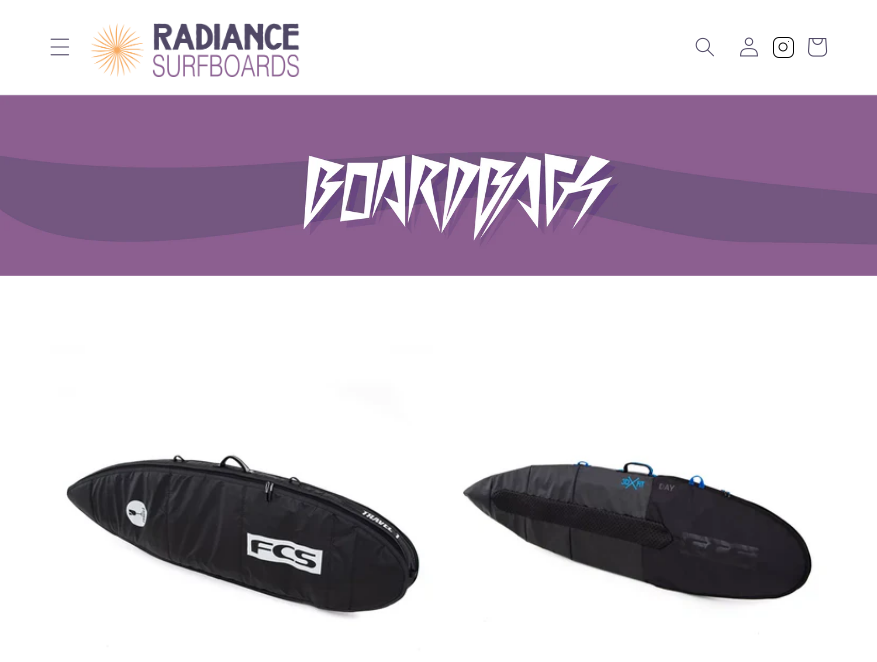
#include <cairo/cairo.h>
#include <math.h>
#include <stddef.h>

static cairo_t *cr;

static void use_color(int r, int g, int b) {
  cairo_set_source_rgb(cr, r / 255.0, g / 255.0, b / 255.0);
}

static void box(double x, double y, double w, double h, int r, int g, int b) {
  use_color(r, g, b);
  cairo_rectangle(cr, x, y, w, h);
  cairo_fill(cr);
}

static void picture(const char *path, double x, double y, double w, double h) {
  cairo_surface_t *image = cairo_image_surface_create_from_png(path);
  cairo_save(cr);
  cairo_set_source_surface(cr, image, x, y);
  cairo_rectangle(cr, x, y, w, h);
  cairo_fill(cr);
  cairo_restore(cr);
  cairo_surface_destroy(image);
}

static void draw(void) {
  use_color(255, 255, 255);
  cairo_paint(cr);
  box(0, 94, 877, 1, 241, 240, 243);
  picture("img_01.png", 50, 38, 20, 18);
  picture("img_02.png", 90, 23, 210, 54);
  picture("img_03.png", 695, 37, 19, 20);
  picture("img_04.png", 740, 37, 18, 20);
  picture("img_05.png", 773, 37, 21, 21);
  picture("img_06.png", 808, 38, 20, 19);
  picture("img_07.png", 0, 95, 877, 181);
  picture("img_08.png", 50, 328, 383, 334);
  picture("img_09.png", 445, 328, 382, 334);
}

int main(void) {
  cairo_surface_t *surface = cairo_image_surface_create(CAIRO_FORMAT_RGB24, 877, 662);
  cr = cairo_create(surface);
  cairo_font_options_t *options = cairo_font_options_create();
  cairo_font_options_set_hint_metrics(options, CAIRO_HINT_METRICS_OFF);
  cairo_font_options_set_hint_style(options, CAIRO_HINT_STYLE_NONE);
  cairo_set_font_options(cr, options);
  cairo_set_miter_limit(cr, 4);
  draw();
  cairo_surface_write_to_png(surface, "out.png");
  cairo_font_options_destroy(options);
  cairo_destroy(cr);
  cairo_surface_destroy(surface);
  return 0;
}
